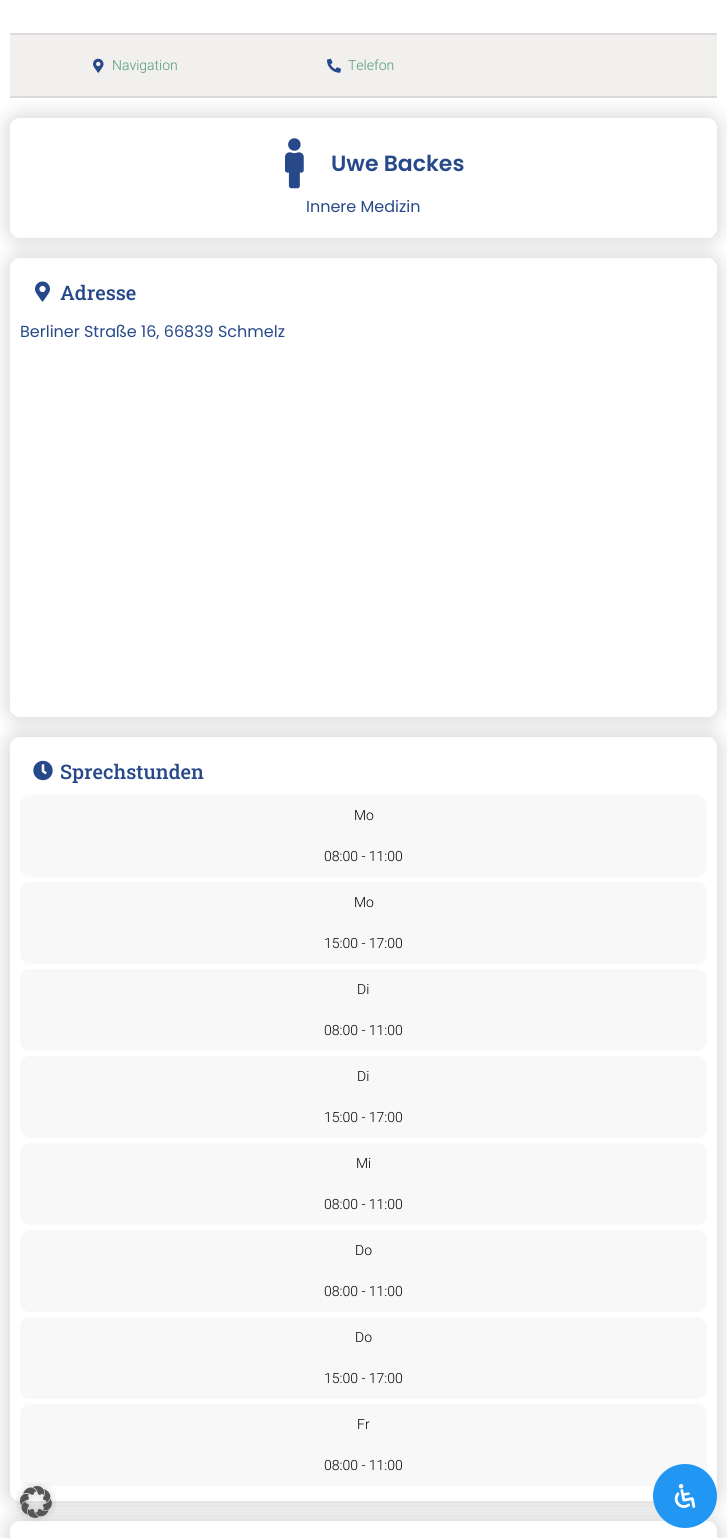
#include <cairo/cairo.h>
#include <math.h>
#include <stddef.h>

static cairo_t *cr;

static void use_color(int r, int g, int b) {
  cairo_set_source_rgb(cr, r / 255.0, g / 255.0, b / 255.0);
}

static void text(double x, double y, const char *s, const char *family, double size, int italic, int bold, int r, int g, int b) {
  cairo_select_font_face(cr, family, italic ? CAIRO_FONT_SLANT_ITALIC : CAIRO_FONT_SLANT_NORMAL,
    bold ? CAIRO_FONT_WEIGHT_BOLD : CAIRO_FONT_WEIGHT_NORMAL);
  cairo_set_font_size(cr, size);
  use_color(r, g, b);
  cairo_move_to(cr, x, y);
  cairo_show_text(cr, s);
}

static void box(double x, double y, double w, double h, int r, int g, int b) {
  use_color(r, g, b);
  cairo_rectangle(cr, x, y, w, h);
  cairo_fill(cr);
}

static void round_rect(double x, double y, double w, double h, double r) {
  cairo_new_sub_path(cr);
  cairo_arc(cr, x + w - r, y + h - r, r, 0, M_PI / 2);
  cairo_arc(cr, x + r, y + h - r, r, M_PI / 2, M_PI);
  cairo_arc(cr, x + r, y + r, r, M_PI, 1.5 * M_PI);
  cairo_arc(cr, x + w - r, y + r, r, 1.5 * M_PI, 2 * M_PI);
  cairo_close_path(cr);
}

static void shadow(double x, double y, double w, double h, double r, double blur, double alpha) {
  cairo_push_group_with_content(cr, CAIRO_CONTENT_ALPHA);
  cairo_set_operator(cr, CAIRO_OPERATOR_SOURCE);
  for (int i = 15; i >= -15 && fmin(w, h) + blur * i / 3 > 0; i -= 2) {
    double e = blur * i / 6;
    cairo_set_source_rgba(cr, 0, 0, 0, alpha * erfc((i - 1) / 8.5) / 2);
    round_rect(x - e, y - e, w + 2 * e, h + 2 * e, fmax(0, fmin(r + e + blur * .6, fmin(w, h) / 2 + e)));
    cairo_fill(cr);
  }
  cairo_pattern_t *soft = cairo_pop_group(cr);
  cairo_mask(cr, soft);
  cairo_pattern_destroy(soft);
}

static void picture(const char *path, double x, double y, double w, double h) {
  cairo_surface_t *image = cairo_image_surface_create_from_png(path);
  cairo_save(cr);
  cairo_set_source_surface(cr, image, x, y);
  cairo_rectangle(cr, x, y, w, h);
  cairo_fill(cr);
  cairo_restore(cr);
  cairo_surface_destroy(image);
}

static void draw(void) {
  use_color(255, 255, 255);
  cairo_paint(cr);
  cairo_save(cr);
  cairo_set_fill_rule(cr, CAIRO_FILL_RULE_EVEN_ODD);
  cairo_new_path(cr);
  cairo_move_to(cr, 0, 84);
  cairo_line_to(cr, 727, 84);
  cairo_line_to(cr, 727, 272);
  cairo_line_to(cr, 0, 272);
  cairo_close_path(cr);
  cairo_move_to(cr, 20, 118);
  cairo_line_to(cr, 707, 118);
  cairo_curve_to(cr, 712.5, 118, 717, 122.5, 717, 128);
  cairo_line_to(cr, 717, 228);
  cairo_curve_to(cr, 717, 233.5, 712.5, 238, 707, 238);
  cairo_line_to(cr, 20, 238);
  cairo_curve_to(cr, 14.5, 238, 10, 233.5, 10, 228);
  cairo_line_to(cr, 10, 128);
  cairo_curve_to(cr, 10, 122.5, 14.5, 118, 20, 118);
  cairo_close_path(cr);
  cairo_clip(cr);
  use_color(0, 0, 0);
  shadow(7, 115, 713, 126, 13, 10, 0.15);
  cairo_restore(cr);
  box(10, 35, 707, 61, 242, 239, 239);
  box(10, 33, 707, 2, 220, 218, 219);
  box(10, 96, 707, 2, 220, 218, 219);
  picture("img_01.png", 93, 58, 11, 15);
  picture("img_02.png", 327, 58, 14, 15);
  picture("img_03.png", 285, 138, 19, 51);
  cairo_save(cr);
  cairo_set_fill_rule(cr, CAIRO_FILL_RULE_EVEN_ODD);
  cairo_new_path(cr);
  cairo_move_to(cr, 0, 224);
  cairo_line_to(cr, 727, 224);
  cairo_line_to(cr, 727, 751);
  cairo_line_to(cr, 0, 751);
  cairo_close_path(cr);
  cairo_move_to(cr, 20, 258);
  cairo_line_to(cr, 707, 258);
  cairo_curve_to(cr, 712.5, 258, 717, 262.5, 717, 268);
  cairo_line_to(cr, 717, 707);
  cairo_curve_to(cr, 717, 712.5, 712.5, 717, 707, 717);
  cairo_line_to(cr, 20, 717);
  cairo_curve_to(cr, 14.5, 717, 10, 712.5, 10, 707);
  cairo_line_to(cr, 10, 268);
  cairo_curve_to(cr, 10, 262.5, 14.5, 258, 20, 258);
  cairo_close_path(cr);
  cairo_clip(cr);
  use_color(0, 0, 0);
  shadow(7, 255, 713, 465, 13, 10, 0.15);
  cairo_restore(cr);
  picture("img_04.png", 35, 281, 15, 21);
  cairo_save(cr);
  cairo_set_fill_rule(cr, CAIRO_FILL_RULE_EVEN_ODD);
  cairo_new_path(cr);
  cairo_move_to(cr, 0, 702);
  cairo_line_to(cr, 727, 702);
  cairo_line_to(cr, 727, 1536);
  cairo_line_to(cr, 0, 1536);
  cairo_close_path(cr);
  cairo_move_to(cr, 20, 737);
  cairo_line_to(cr, 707, 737);
  cairo_curve_to(cr, 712.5, 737, 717, 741.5, 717, 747);
  cairo_line_to(cr, 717, 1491);
  cairo_curve_to(cr, 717, 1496.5, 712.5, 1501, 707, 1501);
  cairo_line_to(cr, 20, 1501);
  cairo_curve_to(cr, 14.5, 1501, 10, 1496.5, 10, 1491);
  cairo_line_to(cr, 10, 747);
  cairo_curve_to(cr, 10, 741.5, 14.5, 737, 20, 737);
  cairo_close_path(cr);
  cairo_clip(cr);
  use_color(0, 0, 0);
  shadow(6, 733, 715, 772, 14, 10, 0.15);
  cairo_restore(cr);
  picture("img_05.png", 33, 760, 20, 21);
  use_color(248, 248, 248);
  round_rect(20, 795, 687, 82, 10);
  cairo_fill(cr);
  round_rect(20, 882, 687, 82, 10);
  cairo_fill(cr);
  round_rect(20, 969, 687, 82, 10);
  cairo_fill(cr);
  round_rect(20, 1056, 687, 82, 10);
  cairo_fill(cr);
  round_rect(20, 1143, 687, 82, 10);
  cairo_fill(cr);
  round_rect(20, 1230, 687, 82, 10);
  cairo_fill(cr);
  round_rect(20, 1317, 687, 82, 10);
  cairo_fill(cr);
  round_rect(20, 1404, 687, 82, 10);
  cairo_fill(cr);
  cairo_save(cr);
  cairo_set_fill_rule(cr, CAIRO_FILL_RULE_EVEN_ODD);
  cairo_new_path(cr);
  cairo_move_to(cr, 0, 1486);
  cairo_line_to(cr, 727, 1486);
  cairo_line_to(cr, 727, 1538);
  cairo_line_to(cr, 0, 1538);
  cairo_close_path(cr);
  cairo_move_to(cr, 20, 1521);
  cairo_line_to(cr, 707, 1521);
  cairo_curve_to(cr, 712.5, 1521, 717, 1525.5, 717, 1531);
  cairo_line_to(cr, 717, 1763);
  cairo_curve_to(cr, 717, 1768.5, 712.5, 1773, 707, 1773);
  cairo_line_to(cr, 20, 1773);
  cairo_curve_to(cr, 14.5, 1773, 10, 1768.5, 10, 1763);
  cairo_line_to(cr, 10, 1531);
  cairo_curve_to(cr, 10, 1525.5, 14.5, 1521, 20, 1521);
  cairo_close_path(cr);
  cairo_clip(cr);
  use_color(0, 0, 0);
  shadow(6, 1517, 715, 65, 14, 10, 0.15);
  cairo_restore(cr);
  picture("img_06.png", 16, 1482, 40, 40);
  use_color(33, 150, 243);
  cairo_arc(cr, 685, 1496, 32, 0, 2 * M_PI);
  cairo_fill(cr);
  picture("img_07.png", 674, 1484, 22, 24);
  text(112, 70, "Navigation", "Roboto Light", 14, 0, 0, 79, 155, 115);
  text(348, 70, "Telefon", "Roboto Light", 14, 0, 0, 79, 155, 115);
  text(331, 171, "Uwe Backes", "Poppins SemiBold", 22, 0, 0, 39, 73, 138);
  text(306, 212, "Innere Medizin", "Poppins", 16, 0, 0, 39, 73, 138);
  text(60, 300, "Adresse", "Roboto Slab Medium", 20, 0, 0, 39, 73, 138);
  text(20, 337, "Berliner Straße 16, 66839 Schmelz", "Poppins", 16, 0, 0, 39, 73, 138);
  text(60, 779, "Sprechstunden", "Roboto Slab Medium", 20, 0, 0, 39, 73, 138);
  text(354, 820, "Mo", "Roboto Light", 14, 0, 0, 0, 0, 0);
  text(324, 861, "08:00 - 11:00", "Roboto Light", 14, 0, 0, 0, 0, 0);
  text(354, 907, "Mo", "Roboto Light", 14, 0, 0, 0, 0, 0);
  text(324, 948, "15:00 - 17:00", "Roboto Light", 14, 0, 0, 0, 0, 0);
  text(357, 994, "Di", "Roboto Light", 14, 0, 0, 0, 0, 0);
  text(324, 1035, "08:00 - 11:00", "Roboto Light", 14, 0, 0, 0, 0, 0);
  text(357, 1081, "Di", "Roboto Light", 14, 0, 0, 0, 0, 0);
  text(324, 1122, "15:00 - 17:00", "Roboto Light", 14, 0, 0, 0, 0, 0);
  text(356, 1168, "Mi", "Roboto Light", 14, 0, 0, 0, 0, 0);
  text(324, 1209, "08:00 - 11:00", "Roboto Light", 14, 0, 0, 0, 0, 0);
  text(355, 1255, "Do", "Roboto Light", 14, 0, 0, 0, 0, 0);
  text(324, 1296, "08:00 - 11:00", "Roboto Light", 14, 0, 0, 0, 0, 0);
  text(355, 1342, "Do", "Roboto Light", 14, 0, 0, 0, 0, 0);
  text(324, 1383, "15:00 - 17:00", "Roboto Light", 14, 0, 0, 0, 0, 0);
  text(357, 1429, "Fr", "Roboto Light", 14, 0, 0, 0, 0, 0);
  text(324, 1470, "08:00 - 11:00", "Roboto Light", 14, 0, 0, 0, 0, 0);
}

int main(void) {
  cairo_surface_t *surface = cairo_image_surface_create(CAIRO_FORMAT_RGB24, 727, 1538);
  cr = cairo_create(surface);
  cairo_font_options_t *options = cairo_font_options_create();
  cairo_font_options_set_hint_metrics(options, CAIRO_HINT_METRICS_OFF);
  cairo_font_options_set_hint_style(options, CAIRO_HINT_STYLE_NONE);
  cairo_set_font_options(cr, options);
  cairo_set_miter_limit(cr, 4);
  draw();
  cairo_surface_write_to_png(surface, "out.png");
  cairo_font_options_destroy(options);
  cairo_destroy(cr);
  cairo_surface_destroy(surface);
  return 0;
}
